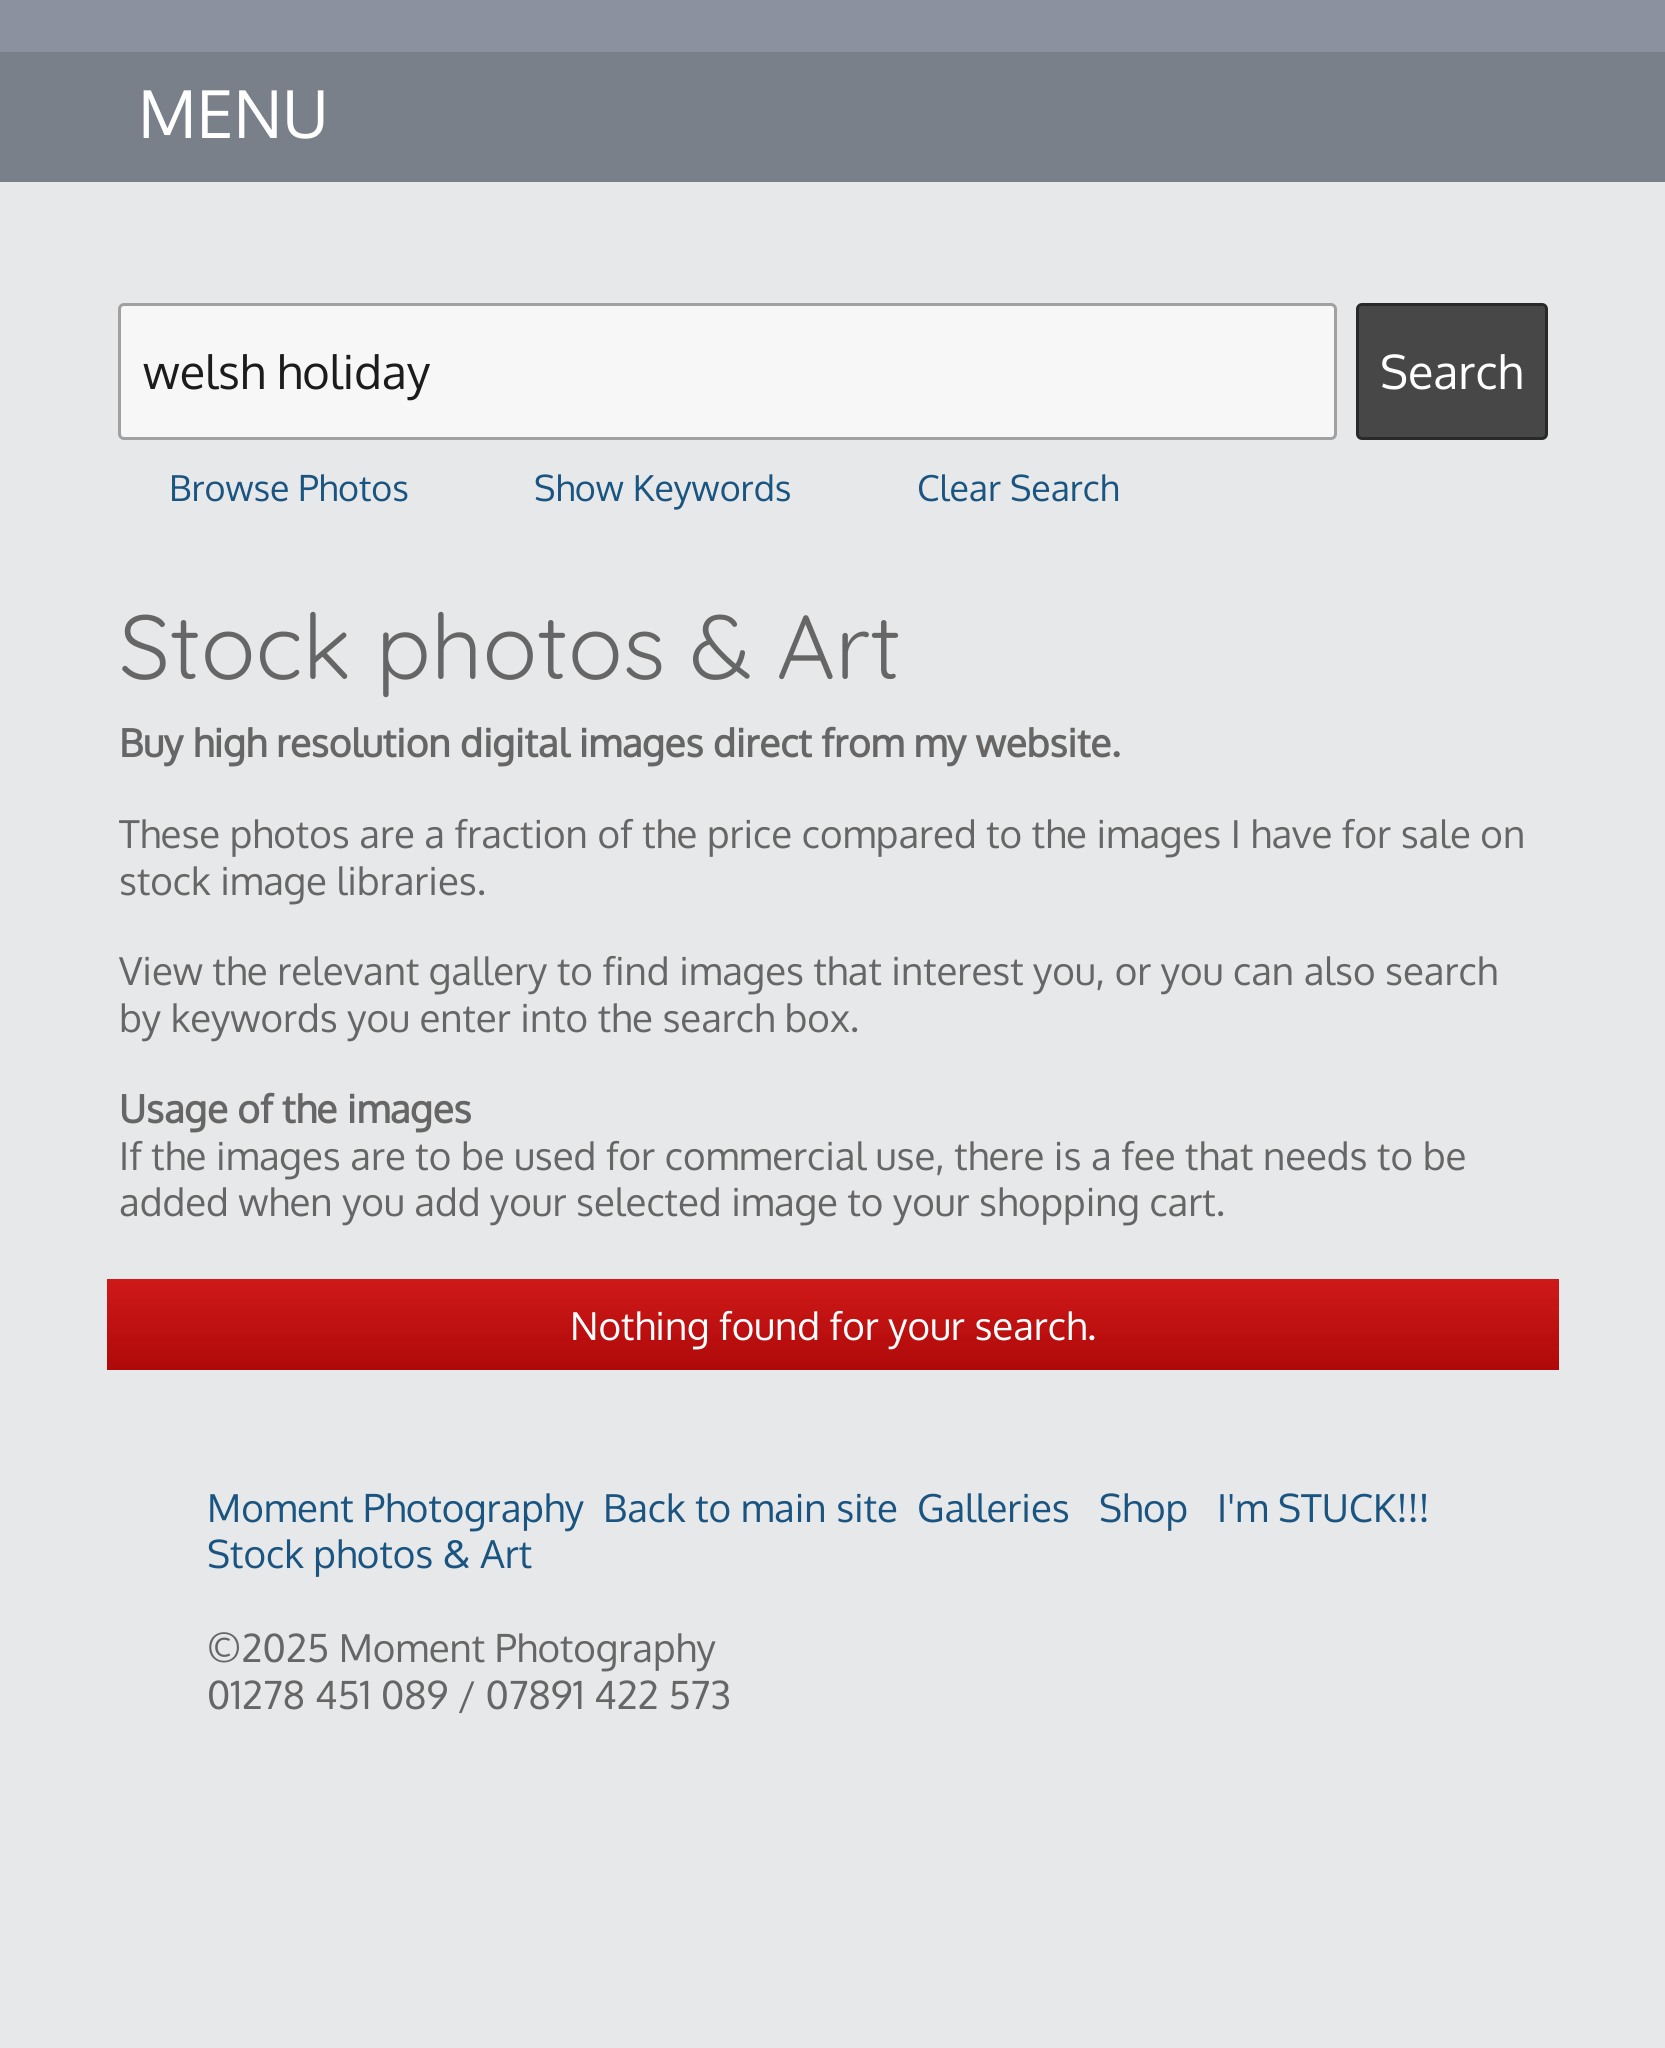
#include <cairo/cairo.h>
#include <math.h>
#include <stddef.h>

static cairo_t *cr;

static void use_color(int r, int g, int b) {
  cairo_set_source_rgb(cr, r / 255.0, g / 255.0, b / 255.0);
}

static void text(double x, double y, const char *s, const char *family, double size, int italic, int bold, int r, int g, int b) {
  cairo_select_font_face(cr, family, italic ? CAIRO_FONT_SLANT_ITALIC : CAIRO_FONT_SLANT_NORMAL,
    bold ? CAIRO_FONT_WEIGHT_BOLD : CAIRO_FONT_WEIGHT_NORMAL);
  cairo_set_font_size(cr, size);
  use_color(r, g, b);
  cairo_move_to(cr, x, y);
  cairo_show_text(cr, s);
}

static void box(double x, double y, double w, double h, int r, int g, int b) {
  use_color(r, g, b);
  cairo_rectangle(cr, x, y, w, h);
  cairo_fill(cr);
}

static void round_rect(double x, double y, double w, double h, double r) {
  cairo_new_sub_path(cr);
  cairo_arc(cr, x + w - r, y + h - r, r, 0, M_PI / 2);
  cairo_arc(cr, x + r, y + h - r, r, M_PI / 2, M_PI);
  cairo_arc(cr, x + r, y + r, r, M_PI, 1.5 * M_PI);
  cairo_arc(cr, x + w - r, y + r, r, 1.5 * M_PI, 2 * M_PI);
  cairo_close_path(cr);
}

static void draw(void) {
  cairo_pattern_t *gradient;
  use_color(231, 232, 233);
  cairo_paint(cr);
  box(0, 0, 1665, 52, 139, 145, 159);
  box(0, 52, 1665, 130, 122, 128, 138);
  use_color(247, 247, 247);
  round_rect(119.5, 304.5, 1216, 134, 4.5);
  cairo_fill_preserve(cr);
  use_color(161, 161, 161);
  cairo_set_line_width(cr, 3);
  cairo_stroke(cr);
  use_color(71, 71, 71);
  round_rect(1357.5, 304.5, 189, 134, 4.5);
  cairo_fill_preserve(cr);
  use_color(41, 41, 41);
  cairo_stroke(cr);
  gradient = cairo_pattern_create_linear(833, 1279, 833, 1370);
  cairo_pattern_add_color_stop_rgba(gradient, 0, 0.812, 0.098, 0.098, 1);
  cairo_pattern_add_color_stop_rgba(gradient, 1, 0.686, 0.035, 0.035, 1);
  cairo_set_source(cr, gradient);
  cairo_pattern_destroy(gradient);
  cairo_rectangle(cr, 107, 1279, 1452, 91);
  cairo_fill(cr);
  text(138, 138, "MENU", "Oxygen", 66, 0, 0, 255, 255, 255);
  text(143, 389, "welsh holiday", "Oxygen", 46.75, 0, 0, 28, 28, 28);
  text(1380, 389, "Search", "Oxygen", 46.75, 0, 0, 255, 255, 255);
  text(169, 501, "Browse Photos", "Oxygen", 35.75, 0, 0, 26, 84, 128);
  text(534, 501, "Show Keywords", "Oxygen", 35.75, 0, 0, 26, 84, 128);
  text(917, 501, "Clear Search", "Oxygen", 35.75, 0, 0, 26, 84, 128);
  text(119, 679, "Stock photos & Art", "Quicksand", 90.75, 0, 0, 102, 102, 102);
  text(119, 757, "Buy high resolution digital images direct from my website.", "Oxygen", 38.5, 0, 1, 102, 102, 102);
  text(119, 848, "These photos are a fraction of the price compared to the images I have for sale on", "Oxygen", 38.5, 0, 0, 102, 102, 102);
  text(119, 895, "stock image libraries.", "Oxygen", 38.5, 0, 0, 102, 102, 102);
  text(119, 985, "View the relevant gallery to find images that interest you, or you can also search", "Oxygen", 38.5, 0, 0, 102, 102, 102);
  text(119, 1032, "by keywords you enter into the search box.", "Oxygen", 38.5, 0, 0, 102, 102, 102);
  text(119, 1123, "Usage of the images", "Oxygen", 38.5, 0, 1, 102, 102, 102);
  text(119, 1170, "If the images are to be used for commercial use, there is a fee that needs to be", "Oxygen", 38.5, 0, 0, 102, 102, 102);
  text(119, 1216, "added when you add your selected image to your shopping cart.", "Oxygen", 38.5, 0, 0, 102, 102, 102);
  text(570, 1340, "Nothing found for your search.", "Oxygen", 38.5, 0, 0, 255, 255, 255);
  text(207, 1522, "Moment Photography", "Oxygen", 38.5, 0, 0, 26, 84, 128);
  text(603, 1522, "Back to main site", "Oxygen", 38.5, 0, 0, 26, 84, 128);
  text(917, 1522, "Galleries", "Oxygen", 38.5, 0, 0, 26, 84, 128);
  text(1099, 1522, "Shop", "Oxygen", 38.5, 0, 0, 26, 84, 128);
  text(1217, 1522, "I'm STUCK!!!", "Oxygen", 38.5, 0, 0, 26, 84, 128);
  text(207, 1568, "Stock photos & Art", "Oxygen", 38.5, 0, 0, 26, 84, 128);
  text(207, 1662, "©2025 Moment Photography", "Oxygen", 38.5, 0, 0, 102, 102, 102);
  text(207, 1709, "01278 451 089 / 07891 422 573", "Oxygen", 38.5, 0, 0, 102, 102, 102);
}

int main(void) {
  cairo_surface_t *surface = cairo_image_surface_create(CAIRO_FORMAT_RGB24, 1665, 2048);
  cr = cairo_create(surface);
  cairo_font_options_t *options = cairo_font_options_create();
  cairo_font_options_set_hint_metrics(options, CAIRO_HINT_METRICS_OFF);
  cairo_font_options_set_hint_style(options, CAIRO_HINT_STYLE_NONE);
  cairo_set_font_options(cr, options);
  cairo_set_miter_limit(cr, 4);
  draw();
  cairo_surface_write_to_png(surface, "out.png");
  cairo_font_options_destroy(options);
  cairo_destroy(cr);
  cairo_surface_destroy(surface);
  return 0;
}
